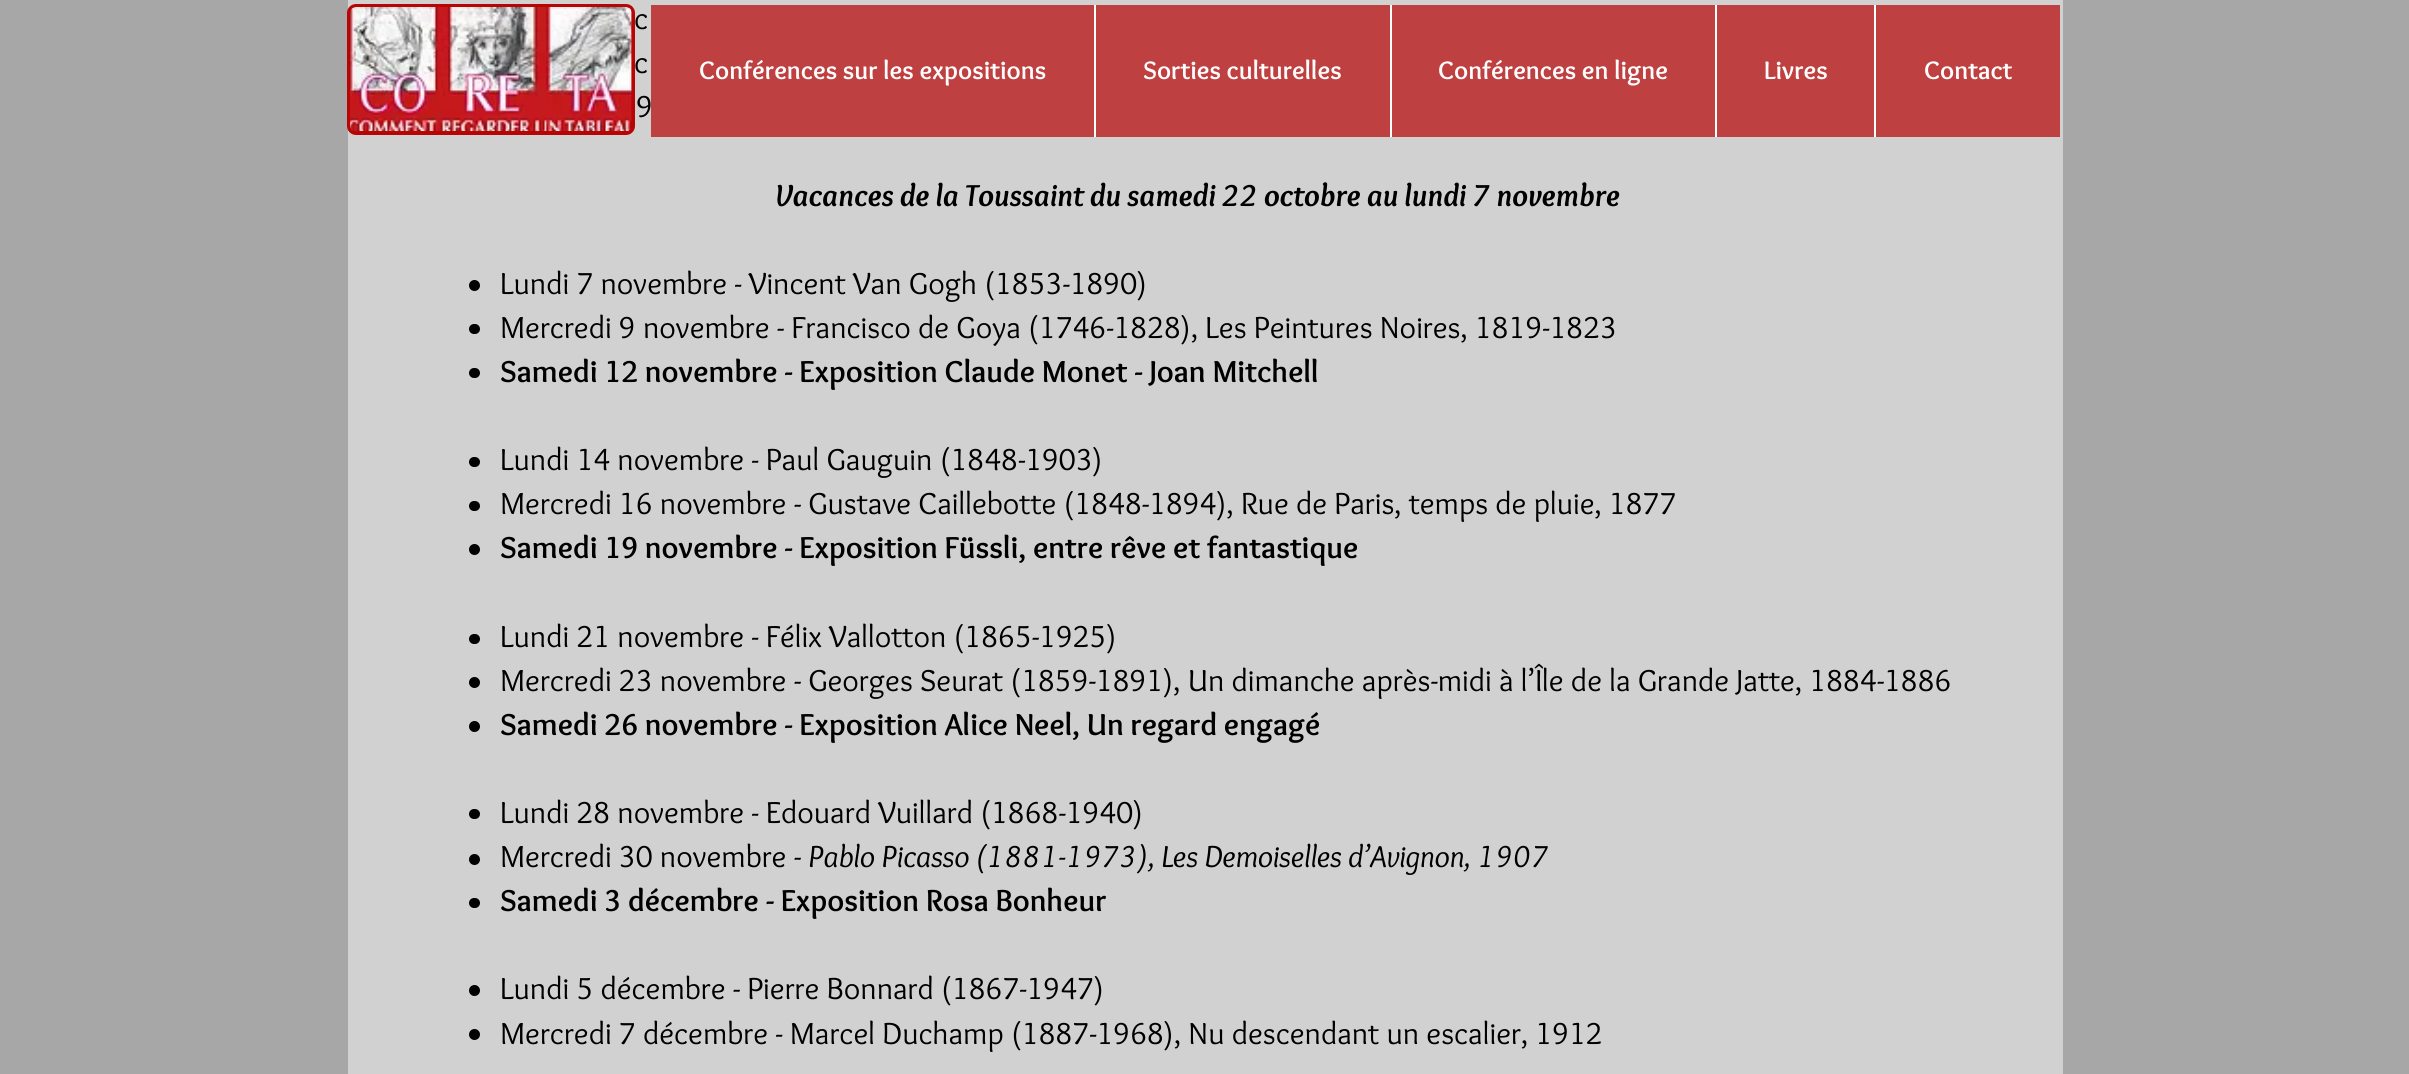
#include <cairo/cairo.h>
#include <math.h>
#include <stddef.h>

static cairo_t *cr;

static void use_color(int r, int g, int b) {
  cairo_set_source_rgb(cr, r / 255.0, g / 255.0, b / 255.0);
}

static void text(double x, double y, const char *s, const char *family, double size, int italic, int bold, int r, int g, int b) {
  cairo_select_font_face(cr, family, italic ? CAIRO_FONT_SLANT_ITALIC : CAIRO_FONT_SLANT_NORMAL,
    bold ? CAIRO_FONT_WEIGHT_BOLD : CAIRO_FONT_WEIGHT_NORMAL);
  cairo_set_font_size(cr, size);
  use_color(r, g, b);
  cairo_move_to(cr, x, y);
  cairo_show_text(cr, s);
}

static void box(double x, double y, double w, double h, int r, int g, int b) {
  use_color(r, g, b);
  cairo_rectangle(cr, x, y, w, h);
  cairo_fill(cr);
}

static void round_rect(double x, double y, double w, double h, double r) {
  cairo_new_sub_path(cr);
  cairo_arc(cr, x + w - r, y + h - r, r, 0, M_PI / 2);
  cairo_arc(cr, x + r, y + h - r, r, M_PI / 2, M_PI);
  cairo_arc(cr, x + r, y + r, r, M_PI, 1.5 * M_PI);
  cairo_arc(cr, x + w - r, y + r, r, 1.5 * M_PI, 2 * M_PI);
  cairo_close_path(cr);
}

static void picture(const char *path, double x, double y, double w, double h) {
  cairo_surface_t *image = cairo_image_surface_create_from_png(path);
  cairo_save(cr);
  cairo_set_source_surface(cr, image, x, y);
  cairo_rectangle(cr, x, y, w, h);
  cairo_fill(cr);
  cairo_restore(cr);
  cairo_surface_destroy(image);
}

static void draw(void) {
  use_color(167, 167, 167);
  cairo_paint(cr);
  box(348, 0, 1715, 1074, 209, 209, 209);
  use_color(0, 0, 0);
  cairo_arc(cr, 474.5, 285.5, 5.5, 0, 2 * M_PI);
  cairo_fill(cr);
  round_rect(469, 324, 11, 10, 5);
  cairo_fill(cr);
  round_rect(469, 368, 11, 10, 5);
  cairo_fill(cr);
  round_rect(469, 457, 11, 10, 5);
  cairo_fill(cr);
  round_rect(469, 501, 11, 10, 5);
  cairo_fill(cr);
  cairo_arc(cr, 474.5, 549.5, 5.5, 0, 2 * M_PI);
  cairo_fill(cr);
  round_rect(469, 634, 11, 10, 5);
  cairo_fill(cr);
  cairo_arc(cr, 474.5, 682.5, 5.5, 0, 2 * M_PI);
  cairo_fill(cr);
  cairo_arc(cr, 474.5, 726.5, 5.5, 0, 2 * M_PI);
  cairo_fill(cr);
  round_rect(469, 809, 11, 10, 5);
  cairo_fill(cr);
  cairo_arc(cr, 474.5, 859.5, 5.5, 0, 2 * M_PI);
  cairo_fill(cr);
  round_rect(469, 898, 11, 10, 5);
  cairo_fill(cr);
  cairo_arc(cr, 474.5, 990.5, 5.5, 0, 2 * M_PI);
  cairo_fill(cr);
  cairo_arc(cr, 474.5, 1034.5, 5.5, 0, 2 * M_PI);
  cairo_fill(cr);
  round_rect(349, 6, 284, 127, 7);
  use_color(183, 5, 5);
  cairo_set_line_width(cr, 4);
  cairo_stroke(cr);
  picture("img_01.png", 350, 7, 282, 124);
  cairo_set_source_rgba(cr, 0.718, 0.02, 0.02, 0.71);
  cairo_rectangle(cr, 651, 5, 1409, 132);
  cairo_fill(cr);
  box(1094, 5, 2, 132, 255, 255, 255);
  box(1390, 5, 2, 132, 255, 255, 255);
  box(1715, 5, 2, 132, 255, 255, 255);
  box(1874, 5, 2, 132, 255, 255, 255);
  text(634, 29, "c", "Overlock", 31.5, 0, 0, 0, 0, 0);
  text(634, 73, "c", "Overlock", 31.5, 0, 0, 0, 0, 0);
  text(636, 117, "9", "Overlock", 31.5, 0, 0, 0, 0, 0);
  text(775, 206, "Vacances de la Toussaint du samedi 22 octobre au lundi 7 novembre", "Overlock", 31.5, 1, 1, 0, 0, 0);
  text(500, 294, "Lundi 7 novembre - Vincent Van Gogh (1853-1890)", "Overlock", 31.5, 0, 0, 0, 0, 0);
  text(500, 338, "Mercredi 9 novembre - Francisco de Goya (1746-1828), Les Peintures Noires, 1819-1823", "Overlock", 31.5, 0, 0, 0, 0, 0);
  text(500, 382, "Samedi 12 novembre - Exposition Claude Monet - Joan Mitchell", "Overlock", 31.5, 0, 1, 0, 0, 0);
  text(500, 470, "Lundi 14 novembre - Paul Gauguin (1848-1903)", "Overlock", 31.5, 0, 0, 0, 0, 0);
  text(500, 514, "Mercredi 16 novembre - Gustave Caillebotte (1848-1894), Rue de Paris, temps de pluie, 1877", "Overlock", 31.5, 0, 0, 0, 0, 0);
  text(500, 558, "Samedi 19 novembre - Exposition Füssli, entre rêve et fantastique", "Overlock", 31.5, 0, 1, 0, 0, 0);
  text(500, 647, "Lundi 21 novembre - Félix Vallotton (1865-1925)", "Overlock", 31.5, 0, 0, 0, 0, 0);
  text(500, 691, "Mercredi 23 novembre - Georges Seurat (1859-1891), Un dimanche après-midi à l’Île de la Grande Jatte, 1884-1886", "Overlock", 31.5, 0, 0, 0, 0, 0);
  text(500, 735, "Samedi 26 novembre - Exposition Alice Neel, Un regard engagé", "Overlock", 31.5, 0, 1, 0, 0, 0);
  text(500, 823, "Lundi 28 novembre - Edouard Vuillard (1868-1940)", "Overlock", 31.5, 0, 0, 0, 0, 0);
  text(500, 867, "Mercredi 30 novembre -", "Overlock", 31.5, 0, 0, 0, 0, 0);
  text(808, 867, "Pablo Picasso (1881-1973), Les Demoiselles d’Avignon, 1907", "Overlock", 31.5, 1, 0, 0, 0, 0);
  text(500, 911, "Samedi 3 décembre - Exposition Rosa Bonheur", "Overlock", 31.5, 0, 1, 0, 0, 0);
  text(500, 999, "Lundi 5 décembre - Pierre Bonnard (1867-1947)", "Overlock", 31.5, 0, 0, 0, 0, 0);
  text(500, 1044, "Mercredi 7 décembre - Marcel Duchamp (1887-1968), Nu descendant un escalier, 1912", "Overlock", 31.5, 0, 0, 0, 0, 0);
  text(699, 79, "Conférences sur les expositions", "Overlock", 26.25, 0, 1, 254, 253, 253);
  text(1143, 79, "Sorties culturelles", "Overlock", 26.25, 0, 1, 254, 253, 253);
  text(1438, 79, "Conférences en ligne", "Overlock", 26.25, 0, 1, 254, 253, 253);
  text(1764, 79, "Livres", "Overlock", 26.25, 0, 1, 254, 253, 253);
  text(1924, 79, "Contact", "Overlock", 26.25, 0, 1, 254, 253, 253);
}

int main(void) {
  cairo_surface_t *surface = cairo_image_surface_create(CAIRO_FORMAT_RGB24, 2409, 1074);
  cr = cairo_create(surface);
  cairo_font_options_t *options = cairo_font_options_create();
  cairo_font_options_set_hint_metrics(options, CAIRO_HINT_METRICS_OFF);
  cairo_font_options_set_hint_style(options, CAIRO_HINT_STYLE_NONE);
  cairo_set_font_options(cr, options);
  cairo_set_miter_limit(cr, 4);
  draw();
  cairo_surface_write_to_png(surface, "out.png");
  cairo_font_options_destroy(options);
  cairo_destroy(cr);
  cairo_surface_destroy(surface);
  return 0;
}
